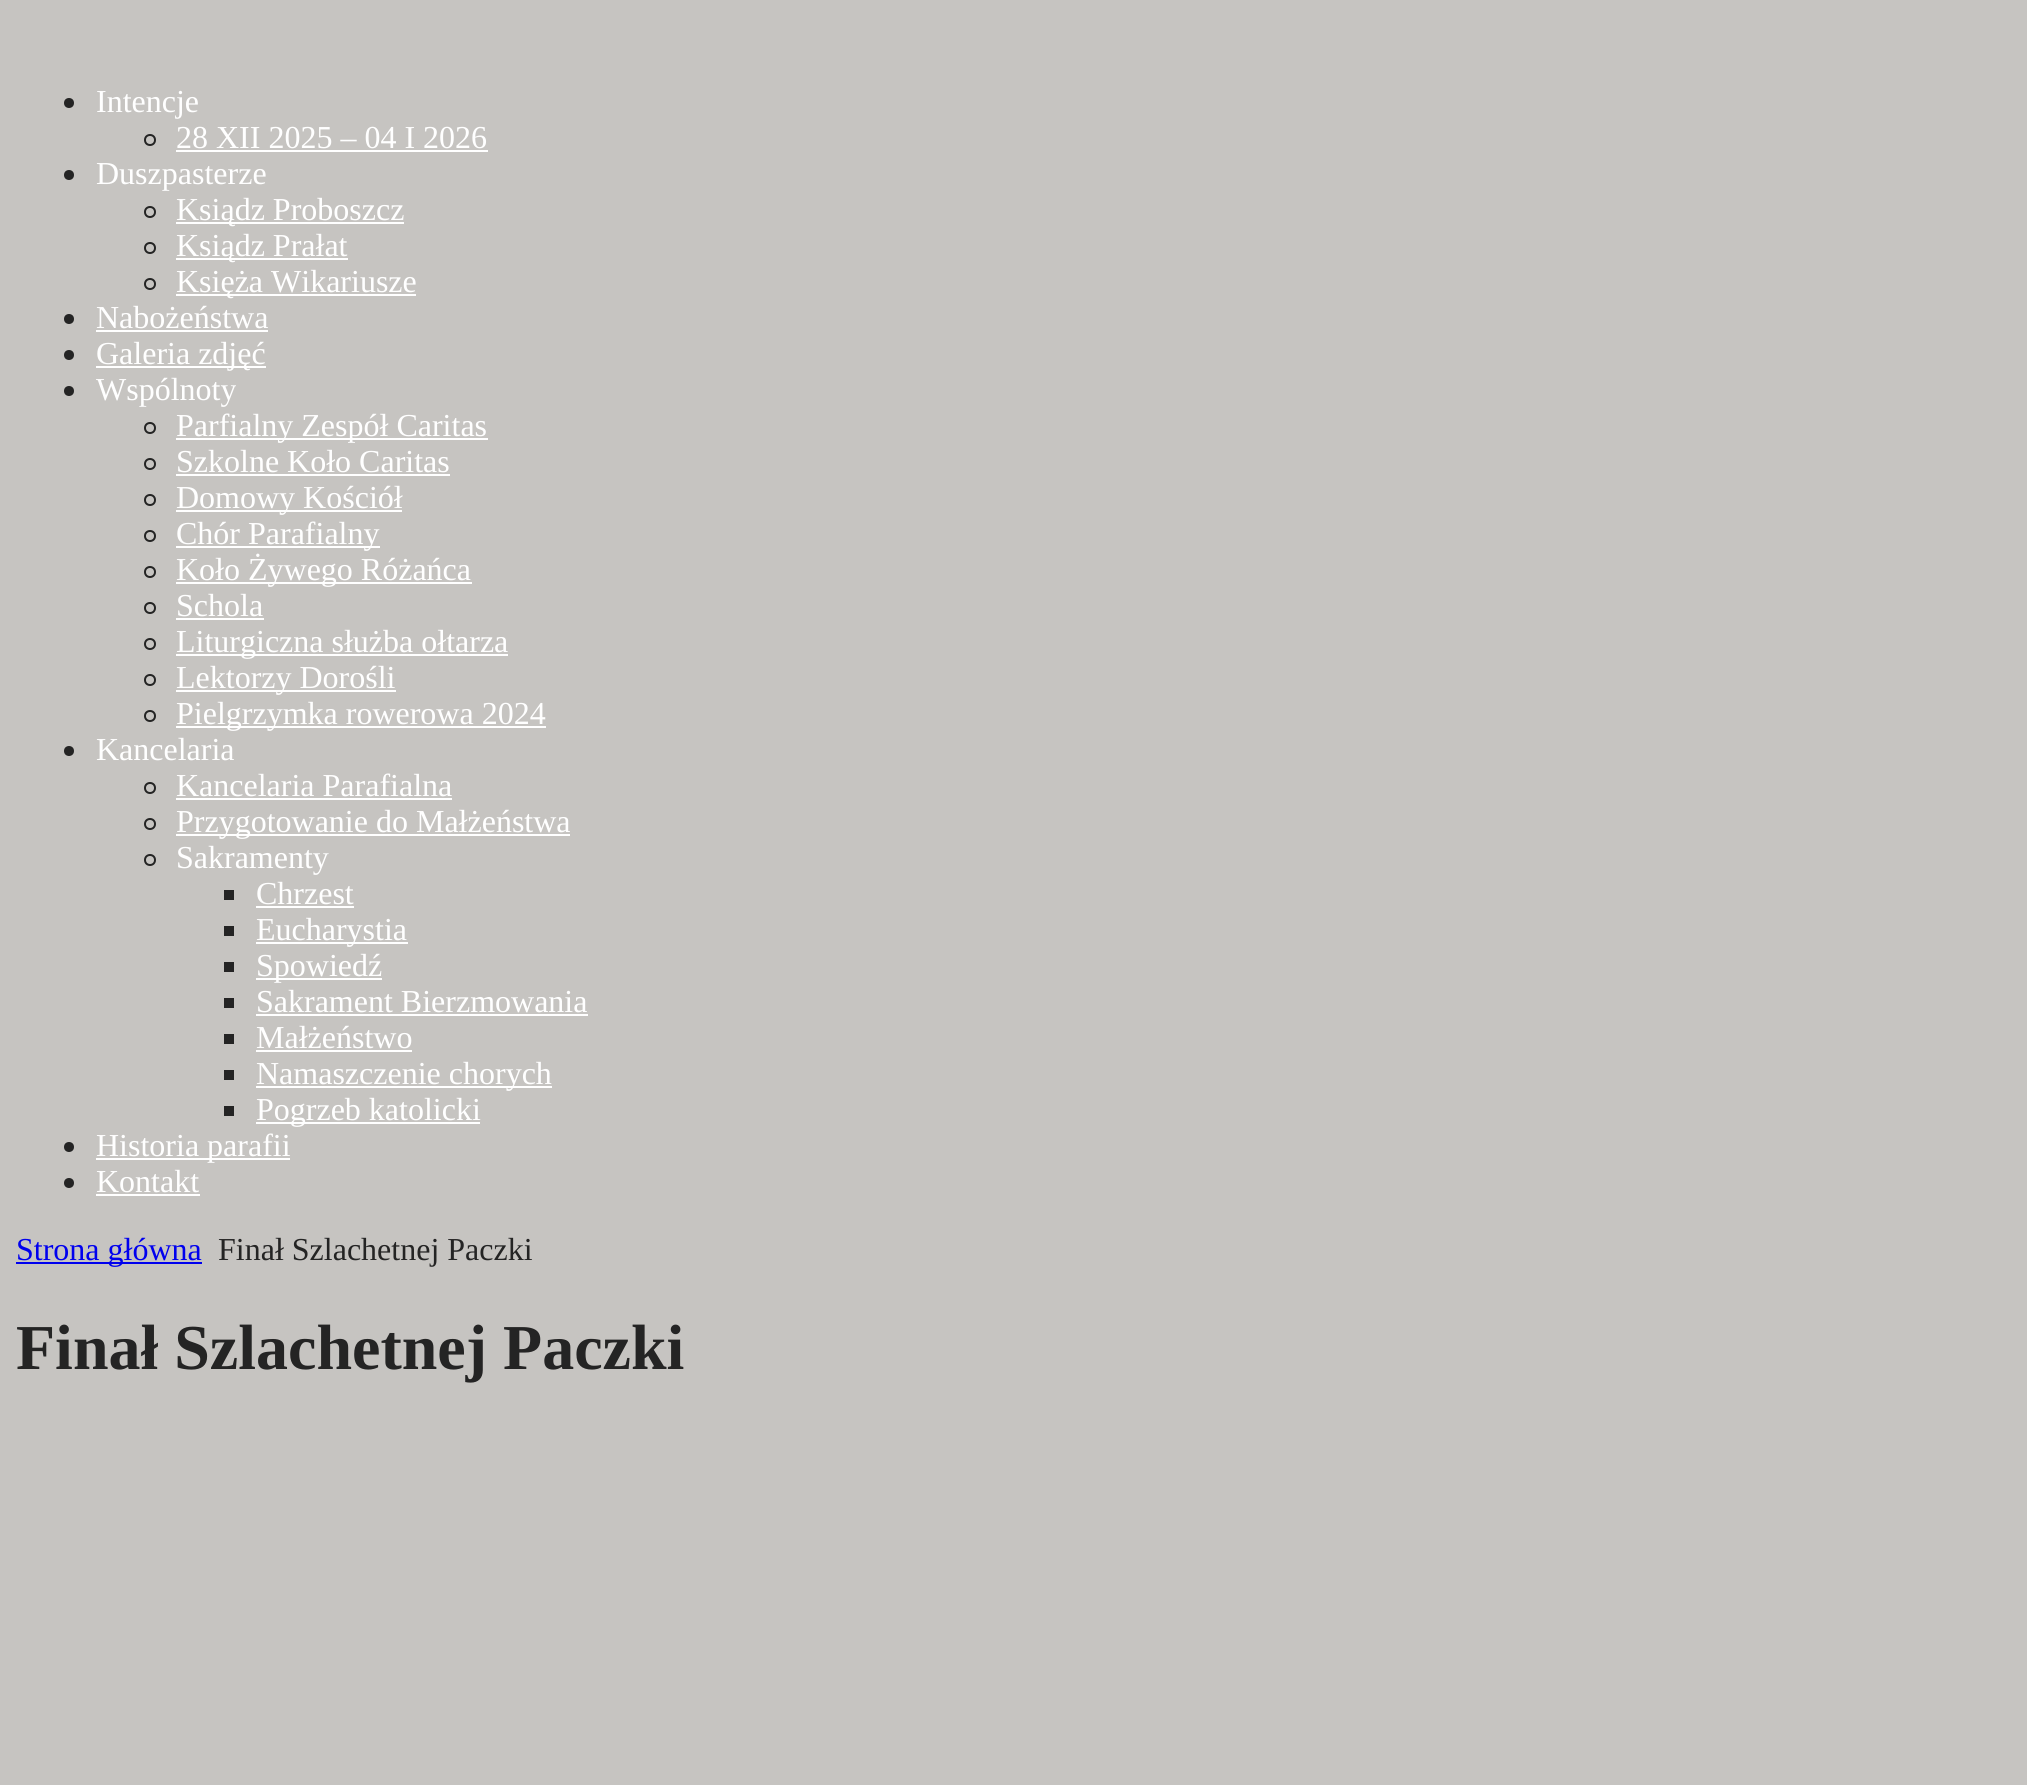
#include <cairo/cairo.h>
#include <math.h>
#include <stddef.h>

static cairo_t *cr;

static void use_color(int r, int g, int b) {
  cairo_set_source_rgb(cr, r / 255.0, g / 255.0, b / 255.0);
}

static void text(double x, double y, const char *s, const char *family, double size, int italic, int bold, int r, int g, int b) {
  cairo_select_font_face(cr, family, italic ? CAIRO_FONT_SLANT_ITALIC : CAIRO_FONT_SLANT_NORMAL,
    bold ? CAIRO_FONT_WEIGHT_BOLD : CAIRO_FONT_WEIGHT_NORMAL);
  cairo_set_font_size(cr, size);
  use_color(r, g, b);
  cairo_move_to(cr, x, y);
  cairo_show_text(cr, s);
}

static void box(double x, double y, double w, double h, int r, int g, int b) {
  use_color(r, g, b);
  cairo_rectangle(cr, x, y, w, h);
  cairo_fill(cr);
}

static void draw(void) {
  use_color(198, 196, 193);
  cairo_paint(cr);
  use_color(36, 36, 36);
  cairo_arc(cr, 69, 103, 5, 0, 2 * M_PI);
  cairo_fill(cr);
  cairo_arc(cr, 150, 140, 5, 0, 2 * M_PI);
  cairo_stroke(cr);
  box(176, 150, 312, 2, 255, 255, 255);
  use_color(36, 36, 36);
  cairo_arc(cr, 69, 175, 5, 0, 2 * M_PI);
  cairo_fill(cr);
  cairo_arc(cr, 150, 212, 5, 0, 2 * M_PI);
  cairo_stroke(cr);
  box(176, 222, 228, 2, 255, 255, 255);
  cairo_arc(cr, 150, 248, 5, 0, 2 * M_PI);
  use_color(36, 36, 36);
  cairo_stroke(cr);
  box(176, 258, 172, 2, 255, 255, 255);
  cairo_arc(cr, 150, 284, 5, 0, 2 * M_PI);
  use_color(36, 36, 36);
  cairo_stroke(cr);
  box(176, 294, 240, 2, 255, 255, 255);
  use_color(36, 36, 36);
  cairo_arc(cr, 69, 319, 5, 0, 2 * M_PI);
  cairo_fill(cr);
  box(96, 330, 172, 2, 255, 255, 255);
  use_color(36, 36, 36);
  cairo_arc(cr, 69, 355, 5, 0, 2 * M_PI);
  cairo_fill(cr);
  box(96, 366, 170, 2, 255, 255, 255);
  use_color(36, 36, 36);
  cairo_arc(cr, 69, 391, 5, 0, 2 * M_PI);
  cairo_fill(cr);
  cairo_arc(cr, 150, 428, 5, 0, 2 * M_PI);
  cairo_stroke(cr);
  box(176, 438, 312, 2, 255, 255, 255);
  cairo_arc(cr, 150, 464, 5, 0, 2 * M_PI);
  use_color(36, 36, 36);
  cairo_stroke(cr);
  box(176, 474, 274, 2, 255, 255, 255);
  cairo_arc(cr, 150, 500, 5, 0, 2 * M_PI);
  use_color(36, 36, 36);
  cairo_stroke(cr);
  box(176, 510, 226, 2, 255, 255, 255);
  cairo_arc(cr, 150, 536, 5, 0, 2 * M_PI);
  use_color(36, 36, 36);
  cairo_stroke(cr);
  box(176, 546, 204, 2, 255, 255, 255);
  cairo_arc(cr, 150, 572, 5, 0, 2 * M_PI);
  use_color(36, 36, 36);
  cairo_stroke(cr);
  box(176, 582, 296, 2, 255, 255, 255);
  cairo_arc(cr, 150, 608, 5, 0, 2 * M_PI);
  use_color(36, 36, 36);
  cairo_stroke(cr);
  box(176, 618, 88, 2, 255, 255, 255);
  cairo_arc(cr, 150, 644, 5, 0, 2 * M_PI);
  use_color(36, 36, 36);
  cairo_stroke(cr);
  box(176, 654, 332, 2, 255, 255, 255);
  cairo_arc(cr, 150, 680, 5, 0, 2 * M_PI);
  use_color(36, 36, 36);
  cairo_stroke(cr);
  box(176, 690, 220, 2, 255, 255, 255);
  cairo_arc(cr, 150, 716, 5, 0, 2 * M_PI);
  use_color(36, 36, 36);
  cairo_stroke(cr);
  box(176, 726, 370, 2, 255, 255, 255);
  use_color(36, 36, 36);
  cairo_arc(cr, 69, 751, 5, 0, 2 * M_PI);
  cairo_fill(cr);
  cairo_arc(cr, 150, 788, 5, 0, 2 * M_PI);
  cairo_stroke(cr);
  box(176, 798, 276, 2, 255, 255, 255);
  cairo_arc(cr, 150, 824, 5, 0, 2 * M_PI);
  use_color(36, 36, 36);
  cairo_stroke(cr);
  box(176, 834, 394, 2, 255, 255, 255);
  cairo_arc(cr, 150, 860, 5, 0, 2 * M_PI);
  use_color(36, 36, 36);
  cairo_stroke(cr);
  box(224, 890, 10, 10, 36, 36, 36);
  box(256, 906, 98, 2, 255, 255, 255);
  box(224, 926, 10, 10, 36, 36, 36);
  box(256, 942, 152, 2, 255, 255, 255);
  box(224, 962, 10, 10, 36, 36, 36);
  box(256, 978, 126, 2, 255, 255, 255);
  box(224, 998, 10, 10, 36, 36, 36);
  box(256, 1014, 332, 2, 255, 255, 255);
  box(224, 1034, 10, 10, 36, 36, 36);
  box(256, 1050, 156, 2, 255, 255, 255);
  box(224, 1070, 10, 10, 36, 36, 36);
  box(256, 1086, 296, 2, 255, 255, 255);
  box(224, 1106, 10, 10, 36, 36, 36);
  box(256, 1122, 224, 2, 255, 255, 255);
  use_color(36, 36, 36);
  cairo_arc(cr, 69, 1147, 5, 0, 2 * M_PI);
  cairo_fill(cr);
  box(96, 1158, 194, 2, 255, 255, 255);
  use_color(36, 36, 36);
  cairo_arc(cr, 69, 1183, 5, 0, 2 * M_PI);
  cairo_fill(cr);
  box(96, 1194, 104, 2, 255, 255, 255);
  box(16, 1262, 186, 2, 0, 0, 238);
  text(96, 112, "Intencje", "Liberation Serif", 32, 0, 0, 255, 255, 255);
  text(176, 148, "28 XII 2025 – 04 I 2026", "Liberation Serif", 32, 0, 0, 255, 255, 255);
  text(96, 184, "Duszpasterze", "Liberation Serif", 32, 0, 0, 255, 255, 255);
  text(176, 220, "Ksiądz Proboszcz", "Liberation Serif", 32, 0, 0, 255, 255, 255);
  text(176, 256, "Ksiądz Prałat", "Liberation Serif", 32, 0, 0, 255, 255, 255);
  text(176, 292, "Księża Wikariusze", "Liberation Serif", 32, 0, 0, 255, 255, 255);
  text(96, 328, "Nabożeństwa", "Liberation Serif", 32, 0, 0, 255, 255, 255);
  text(96, 364, "Galeria zdjęć", "Liberation Serif", 32, 0, 0, 255, 255, 255);
  text(96, 400, "Wspólnoty", "Liberation Serif", 32, 0, 0, 255, 255, 255);
  text(176, 436, "Parfialny Zespół Caritas", "Liberation Serif", 32, 0, 0, 255, 255, 255);
  text(176, 472, "Szkolne Koło Caritas", "Liberation Serif", 32, 0, 0, 255, 255, 255);
  text(176, 508, "Domowy Kościół", "Liberation Serif", 32, 0, 0, 255, 255, 255);
  text(176, 544, "Chór Parafialny", "Liberation Serif", 32, 0, 0, 255, 255, 255);
  text(176, 580, "Koło Żywego Różańca", "Liberation Serif", 32, 0, 0, 255, 255, 255);
  text(176, 616, "Schola", "Liberation Serif", 32, 0, 0, 255, 255, 255);
  text(176, 652, "Liturgiczna służba ołtarza", "Liberation Serif", 32, 0, 0, 255, 255, 255);
  text(176, 688, "Lektorzy Dorośli", "Liberation Serif", 32, 0, 0, 255, 255, 255);
  text(176, 724, "Pielgrzymka rowerowa 2024", "Liberation Serif", 32, 0, 0, 255, 255, 255);
  text(96, 760, "Kancelaria", "Liberation Serif", 32, 0, 0, 255, 255, 255);
  text(176, 796, "Kancelaria Parafialna", "Liberation Serif", 32, 0, 0, 255, 255, 255);
  text(176, 832, "Przygotowanie do Małżeństwa", "Liberation Serif", 32, 0, 0, 255, 255, 255);
  text(176, 868, "Sakramenty", "Liberation Serif", 32, 0, 0, 255, 255, 255);
  text(256, 904, "Chrzest", "Liberation Serif", 32, 0, 0, 255, 255, 255);
  text(256, 940, "Eucharystia", "Liberation Serif", 32, 0, 0, 255, 255, 255);
  text(256, 976, "Spowiedź", "Liberation Serif", 32, 0, 0, 255, 255, 255);
  text(256, 1012, "Sakrament Bierzmowania", "Liberation Serif", 32, 0, 0, 255, 255, 255);
  text(256, 1048, "Małżeństwo", "Liberation Serif", 32, 0, 0, 255, 255, 255);
  text(256, 1084, "Namaszczenie chorych", "Liberation Serif", 32, 0, 0, 255, 255, 255);
  text(256, 1120, "Pogrzeb katolicki", "Liberation Serif", 32, 0, 0, 255, 255, 255);
  text(96, 1156, "Historia parafii", "Liberation Serif", 32, 0, 0, 255, 255, 255);
  text(96, 1192, "Kontakt", "Liberation Serif", 32, 0, 0, 255, 255, 255);
  text(16, 1260, "Strona główna", "Liberation Serif", 32, 0, 0, 0, 0, 238);
  text(218, 1260, "Finał Szlachetnej Paczki", "Liberation Serif", 32, 0, 0, 36, 36, 36);
  text(16, 1369, "Finał Szlachetnej Paczki", "Liberation Serif", 64, 0, 1, 36, 36, 36);
}

int main(void) {
  cairo_surface_t *surface = cairo_image_surface_create(CAIRO_FORMAT_RGB24, 2027, 1785);
  cr = cairo_create(surface);
  cairo_font_options_t *options = cairo_font_options_create();
  cairo_font_options_set_hint_metrics(options, CAIRO_HINT_METRICS_OFF);
  cairo_font_options_set_hint_style(options, CAIRO_HINT_STYLE_NONE);
  cairo_set_font_options(cr, options);
  cairo_set_miter_limit(cr, 4);
  draw();
  cairo_surface_write_to_png(surface, "out.png");
  cairo_font_options_destroy(options);
  cairo_destroy(cr);
  cairo_surface_destroy(surface);
  return 0;
}
